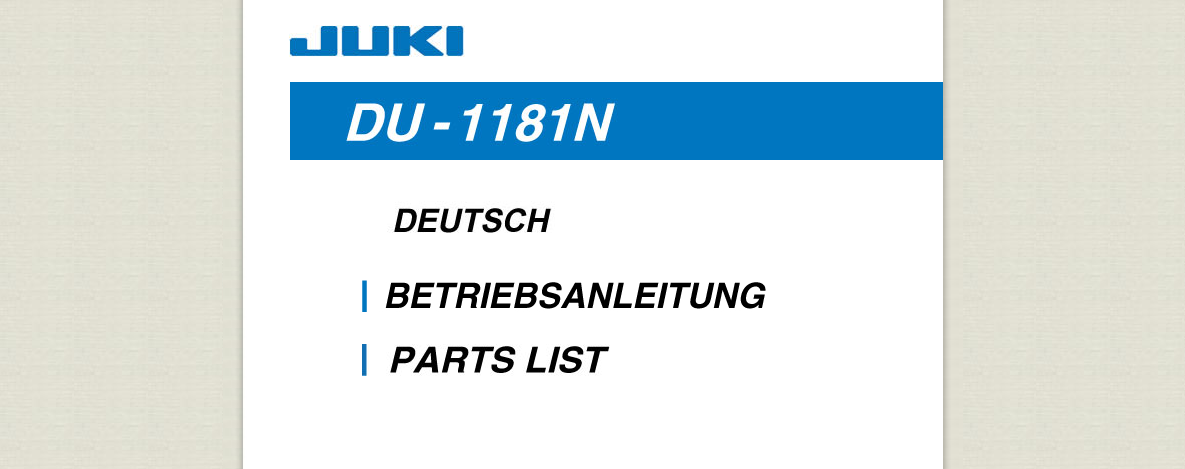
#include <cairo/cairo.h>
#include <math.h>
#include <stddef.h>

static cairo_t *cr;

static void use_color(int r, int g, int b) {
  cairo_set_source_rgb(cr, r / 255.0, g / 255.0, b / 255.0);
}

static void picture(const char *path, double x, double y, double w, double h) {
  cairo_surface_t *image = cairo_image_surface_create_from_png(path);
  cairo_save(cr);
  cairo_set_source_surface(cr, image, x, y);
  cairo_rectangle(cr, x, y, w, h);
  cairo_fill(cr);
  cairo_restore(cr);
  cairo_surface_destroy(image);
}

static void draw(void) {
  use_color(255, 255, 255);
  cairo_paint(cr);
  picture("img_01.png", 0, 0, 1185, 469);
  picture("img_02.png", 223, 0, 740, 469);
  picture("img_03.png", 289, 25, 176, 32);
  picture("img_04.png", 235, 88, 7, 81);
  picture("img_05.png", 290, 82, 653, 78);
  picture("img_06.png", 223, 171, 19, 100);
  picture("img_07.png", 387, 201, 168, 32);
  picture("img_08.png", 362, 280, 404, 32);
  picture("img_09.png", 362, 344, 248, 32);
}

int main(void) {
  cairo_surface_t *surface = cairo_image_surface_create(CAIRO_FORMAT_RGB24, 1185, 469);
  cr = cairo_create(surface);
  cairo_font_options_t *options = cairo_font_options_create();
  cairo_font_options_set_hint_metrics(options, CAIRO_HINT_METRICS_OFF);
  cairo_font_options_set_hint_style(options, CAIRO_HINT_STYLE_NONE);
  cairo_set_font_options(cr, options);
  cairo_set_miter_limit(cr, 4);
  draw();
  cairo_surface_write_to_png(surface, "out.png");
  cairo_font_options_destroy(options);
  cairo_destroy(cr);
  cairo_surface_destroy(surface);
  return 0;
}
